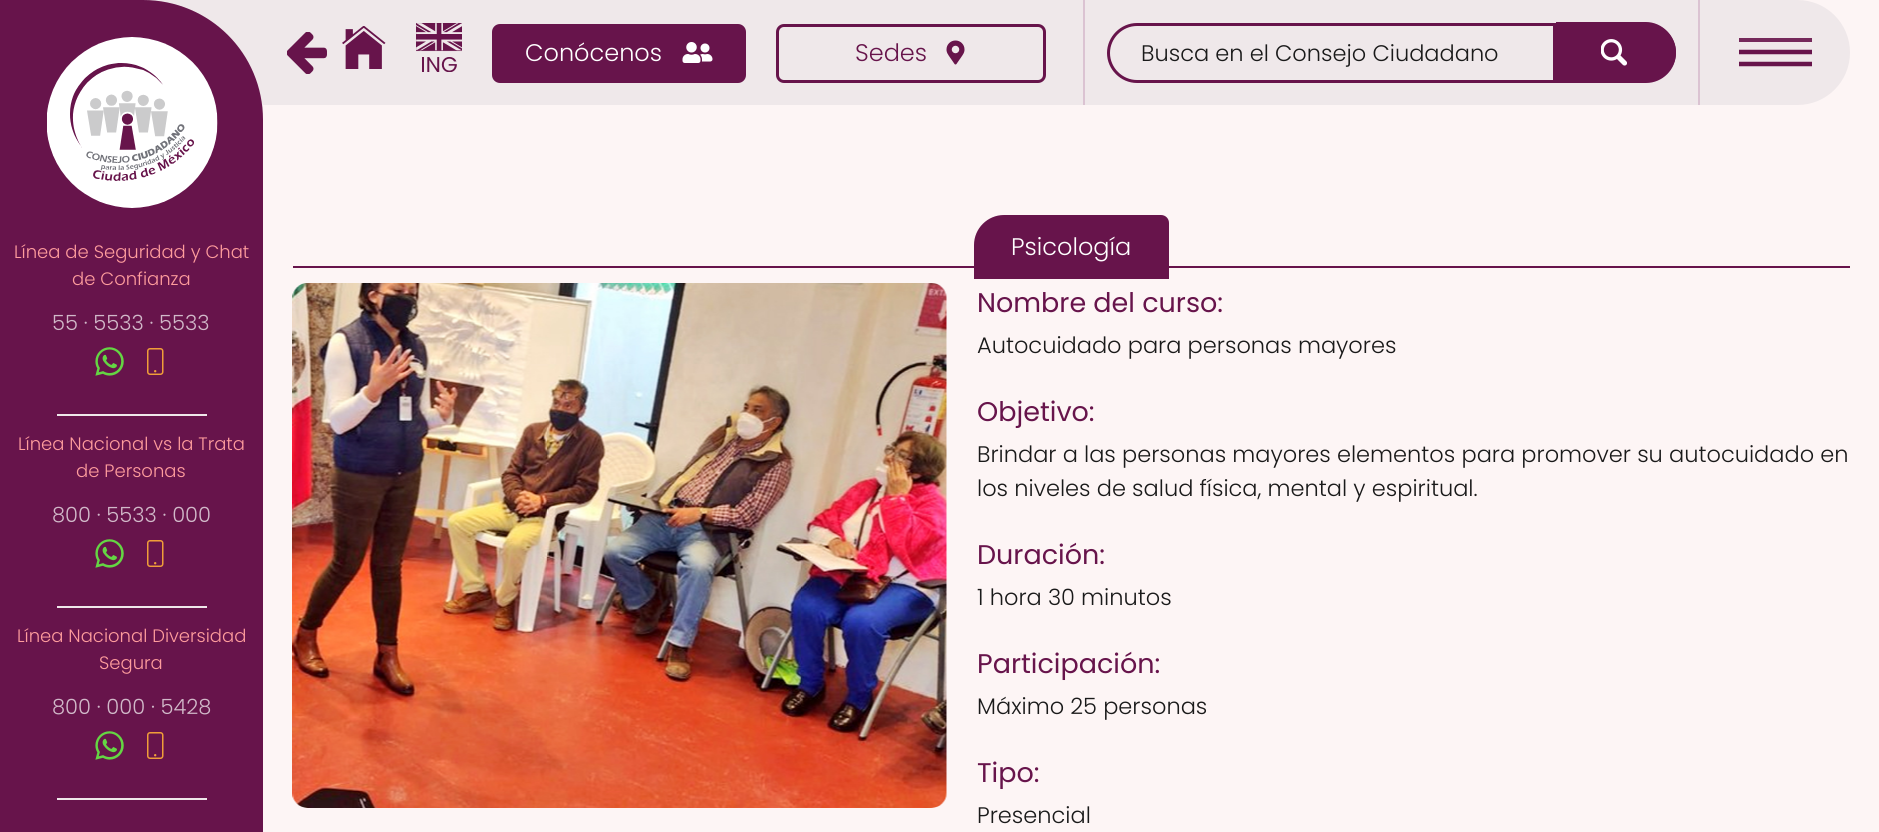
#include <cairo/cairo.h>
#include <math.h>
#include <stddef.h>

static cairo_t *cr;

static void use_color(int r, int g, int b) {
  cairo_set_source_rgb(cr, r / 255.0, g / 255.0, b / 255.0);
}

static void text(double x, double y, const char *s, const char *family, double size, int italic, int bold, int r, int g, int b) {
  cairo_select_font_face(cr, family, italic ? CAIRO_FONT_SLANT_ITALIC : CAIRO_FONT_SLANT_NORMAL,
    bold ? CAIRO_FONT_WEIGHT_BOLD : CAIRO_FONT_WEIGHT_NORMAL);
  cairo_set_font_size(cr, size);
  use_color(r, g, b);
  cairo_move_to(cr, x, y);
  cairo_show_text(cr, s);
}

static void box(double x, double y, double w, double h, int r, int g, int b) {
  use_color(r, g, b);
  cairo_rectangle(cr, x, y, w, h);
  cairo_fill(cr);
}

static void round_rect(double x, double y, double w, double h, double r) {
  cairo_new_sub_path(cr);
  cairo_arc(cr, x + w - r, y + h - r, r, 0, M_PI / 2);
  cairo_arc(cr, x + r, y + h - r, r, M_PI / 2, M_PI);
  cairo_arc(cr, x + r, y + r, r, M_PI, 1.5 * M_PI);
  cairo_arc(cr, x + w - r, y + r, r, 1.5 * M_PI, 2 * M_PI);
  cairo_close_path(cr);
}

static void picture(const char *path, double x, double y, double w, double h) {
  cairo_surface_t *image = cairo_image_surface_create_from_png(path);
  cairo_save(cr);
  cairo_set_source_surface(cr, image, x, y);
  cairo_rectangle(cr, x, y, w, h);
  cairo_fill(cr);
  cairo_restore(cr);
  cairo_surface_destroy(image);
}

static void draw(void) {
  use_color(239, 232, 234);
  cairo_paint(cr);
  use_color(103, 20, 75);
  cairo_new_path(cr);
  cairo_move_to(cr, 0, 0);
  cairo_line_to(cr, 143, 0);
  cairo_curve_to(cr, 209.5, 0, 263, 53.5, 263, 120);
  cairo_line_to(cr, 263, 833);
  cairo_line_to(cr, 0, 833);
  cairo_close_path(cr);
  cairo_fill(cr);
  picture("img_01.png", 47, 37, 171, 171);
  picture("img_02.png", 95, 347, 29, 29);
  picture("img_03.png", 147, 348, 17, 27);
  box(57, 414, 150, 2, 239, 232, 234);
  picture("img_02.png", 95, 539, 29, 29);
  picture("img_03.png", 147, 540, 17, 27);
  box(57, 606, 150, 2, 239, 232, 234);
  picture("img_02.png", 95, 731, 29, 29);
  picture("img_03.png", 147, 732, 17, 27);
  box(57, 798, 150, 2, 239, 232, 234);
  box(263, 0, 1616, 832, 253, 245, 245);
  box(263, 0, 820, 105, 239, 232, 234);
  picture("img_04.png", 287, 32, 40, 42);
  picture("img_05.png", 342, 26, 44, 43);
  picture("img_06.png", 416, 23, 46, 49);
  use_color(103, 20, 75);
  round_rect(493.5, 25.5, 251, 56, 6.5);
  cairo_fill_preserve(cr);
  cairo_set_line_width(cr, 3);
  cairo_stroke(cr);
  picture("img_07.png", 682, 42, 31, 21);
  round_rect(777.5, 25.5, 267, 56, 6.5);
  cairo_stroke(cr);
  picture("img_08.png", 946, 40, 19, 25);
  box(1085, 0, 613, 105, 239, 232, 234);
  box(1698, 0, 2, 105, 219, 195, 210);
  box(1083, 0, 2, 105, 219, 195, 210);
  cairo_new_path(cr);
  cairo_move_to(cr, 1137, 24.5);
  cairo_line_to(cr, 1554.5, 24.5);
  cairo_line_to(cr, 1554.5, 81.5);
  cairo_line_to(cr, 1137, 81.5);
  cairo_curve_to(cr, 1121.5, 81.5, 1108.5, 68.5, 1108.5, 53);
  cairo_curve_to(cr, 1108.5, 37.5, 1121.5, 24.5, 1137, 24.5);
  cairo_close_path(cr);
  use_color(103, 20, 75);
  cairo_stroke(cr);
  cairo_new_path(cr);
  cairo_move_to(cr, 1556, 23);
  cairo_line_to(cr, 1646, 23);
  cairo_curve_to(cr, 1662.5, 23, 1676, 36.5, 1676, 53);
  cairo_curve_to(cr, 1676, 69.5, 1662.5, 83, 1646, 83);
  cairo_line_to(cr, 1556, 83);
  cairo_close_path(cr);
  cairo_fill(cr);
  cairo_set_fill_rule(cr, CAIRO_FILL_RULE_EVEN_ODD);
  cairo_new_path(cr);
  cairo_move_to(cr, 1556, 22);
  cairo_line_to(cr, 1646, 22);
  cairo_curve_to(cr, 1662, 22, 1676, 36, 1676, 52);
  cairo_curve_to(cr, 1676, 69, 1662, 82, 1646, 82);
  cairo_line_to(cr, 1556, 82);
  cairo_close_path(cr);
  cairo_move_to(cr, 1556, 26);
  cairo_line_to(cr, 1646, 26);
  cairo_curve_to(cr, 1660, 26, 1672, 38, 1672, 52);
  cairo_curve_to(cr, 1672, 67, 1660, 80, 1646, 80);
  cairo_line_to(cr, 1556, 80);
  cairo_close_path(cr);
  cairo_fill(cr);
  picture("img_09.png", 1601, 39, 26, 27);
  use_color(239, 232, 234);
  cairo_new_path(cr);
  cairo_move_to(cr, 1700, 0);
  cairo_line_to(cr, 1797.5, 0);
  cairo_curve_to(cr, 1826.5, 0, 1850, 23.5, 1850, 52.5);
  cairo_curve_to(cr, 1850, 81.5, 1826.5, 105, 1797.5, 105);
  cairo_line_to(cr, 1700, 105);
  cairo_close_path(cr);
  cairo_fill(cr);
  box(1739, 38, 73, 4, 117, 41, 91);
  cairo_save(cr);
  cairo_set_fill_rule(cr, CAIRO_FILL_RULE_WINDING);
  cairo_rectangle(cr, 1739, 38, 73, 30);
  cairo_clip(cr);
  cairo_new_path(cr);
  cairo_move_to(cr, 1738.5, 52);
  cairo_line_to(cr, 1812, 52);
  use_color(103, 20, 75);
  cairo_set_line_width(cr, 4.5);
  cairo_stroke(cr);
  cairo_new_path(cr);
  cairo_move_to(cr, 1738.5, 64);
  cairo_line_to(cr, 1812, 64);
  cairo_stroke(cr);
  cairo_restore(cr);
  box(293, 266, 1557, 2, 103, 20, 75);
  cairo_new_path(cr);
  cairo_move_to(cr, 1004, 215);
  cairo_line_to(cr, 1161, 215);
  cairo_curve_to(cr, 1165.5, 215, 1169, 218.5, 1169, 223);
  cairo_line_to(cr, 1169, 279);
  cairo_line_to(cr, 974, 279);
  cairo_line_to(cr, 974, 245);
  cairo_curve_to(cr, 974, 228.5, 987.5, 215, 1004, 215);
  cairo_close_path(cr);
  cairo_fill(cr);
  picture("img_10.png", 292, 283, 655, 525);
  text(14, 258, "Línea de Seguridad y Chat", "Poppins Light", 18, 0, 0, 255, 157, 157);
  text(72, 285, "de Confianza", "Poppins Light", 18, 0, 0, 255, 157, 157);
  text(52, 330, "55 · 5533 · 5533", "Poppins Light", 21, 0, 0, 209, 185, 201);
  text(18, 450, "Línea Nacional vs la Trata", "Poppins Light", 18, 0, 0, 255, 157, 157);
  text(76, 477, "de Personas", "Poppins Light", 18, 0, 0, 255, 157, 157);
  text(52, 522, "800 · 5533 · 000", "Poppins Light", 21, 0, 0, 209, 185, 201);
  text(17, 642, "Línea Nacional Diversidad", "Poppins Light", 18, 0, 0, 255, 157, 157);
  text(99, 669, "Segura", "Poppins Light", 18, 0, 0, 255, 157, 157);
  text(52, 714, "800 · 000 · 5428", "Poppins Light", 21, 0, 0, 209, 185, 201);
  text(525, 61, "Conócenos", "Poppins Light", 24, 0, 0, 255, 255, 255);
  text(855, 61, "Sedes", "Poppins Light", 24, 0, 0, 103, 20, 75);
  text(1141, 61, "Busca en el Consejo Ciudadano", "Poppins Light", 22.5, 0, 0, 26, 26, 26);
  text(1011, 255, "Psicología", "Poppins Light", 24, 0, 0, 255, 255, 255);
  text(977, 312, "Nombre del curso:", "Poppins", 27, 0, 0, 103, 20, 75);
  text(977, 353, "Autocuidado para personas mayores", "Poppins Light", 22.5, 0, 0, 26, 26, 26);
  text(977, 421, "Objetivo:", "Poppins", 27, 0, 0, 103, 20, 75);
  text(977, 462, "Brindar a las personas mayores elementos para promover su autocuidado en", "Poppins Light", 22.5, 0, 0, 26, 26, 26);
  text(977, 496, "los niveles de salud física, mental y espiritual.", "Poppins Light", 22.5, 0, 0, 26, 26, 26);
  text(977, 564, "Duración:", "Poppins", 27, 0, 0, 103, 20, 75);
  text(977, 605, "1 hora 30 minutos", "Poppins Light", 22.5, 0, 0, 26, 26, 26);
  text(977, 673, "Participación:", "Poppins", 27, 0, 0, 103, 20, 75);
  text(977, 714, "Máximo 25 personas", "Poppins Light", 22.5, 0, 0, 26, 26, 26);
  text(977, 782, "Tipo:", "Poppins", 27, 0, 0, 103, 20, 75);
  text(977, 823, "Presencial", "Poppins Light", 22.5, 0, 0, 26, 26, 26);
}

int main(void) {
  cairo_surface_t *surface = cairo_image_surface_create(CAIRO_FORMAT_RGB24, 1879, 832);
  cr = cairo_create(surface);
  cairo_font_options_t *options = cairo_font_options_create();
  cairo_font_options_set_hint_metrics(options, CAIRO_HINT_METRICS_OFF);
  cairo_font_options_set_hint_style(options, CAIRO_HINT_STYLE_NONE);
  cairo_set_font_options(cr, options);
  cairo_set_miter_limit(cr, 4);
  draw();
  cairo_surface_write_to_png(surface, "out.png");
  cairo_font_options_destroy(options);
  cairo_destroy(cr);
  cairo_surface_destroy(surface);
  return 0;
}
